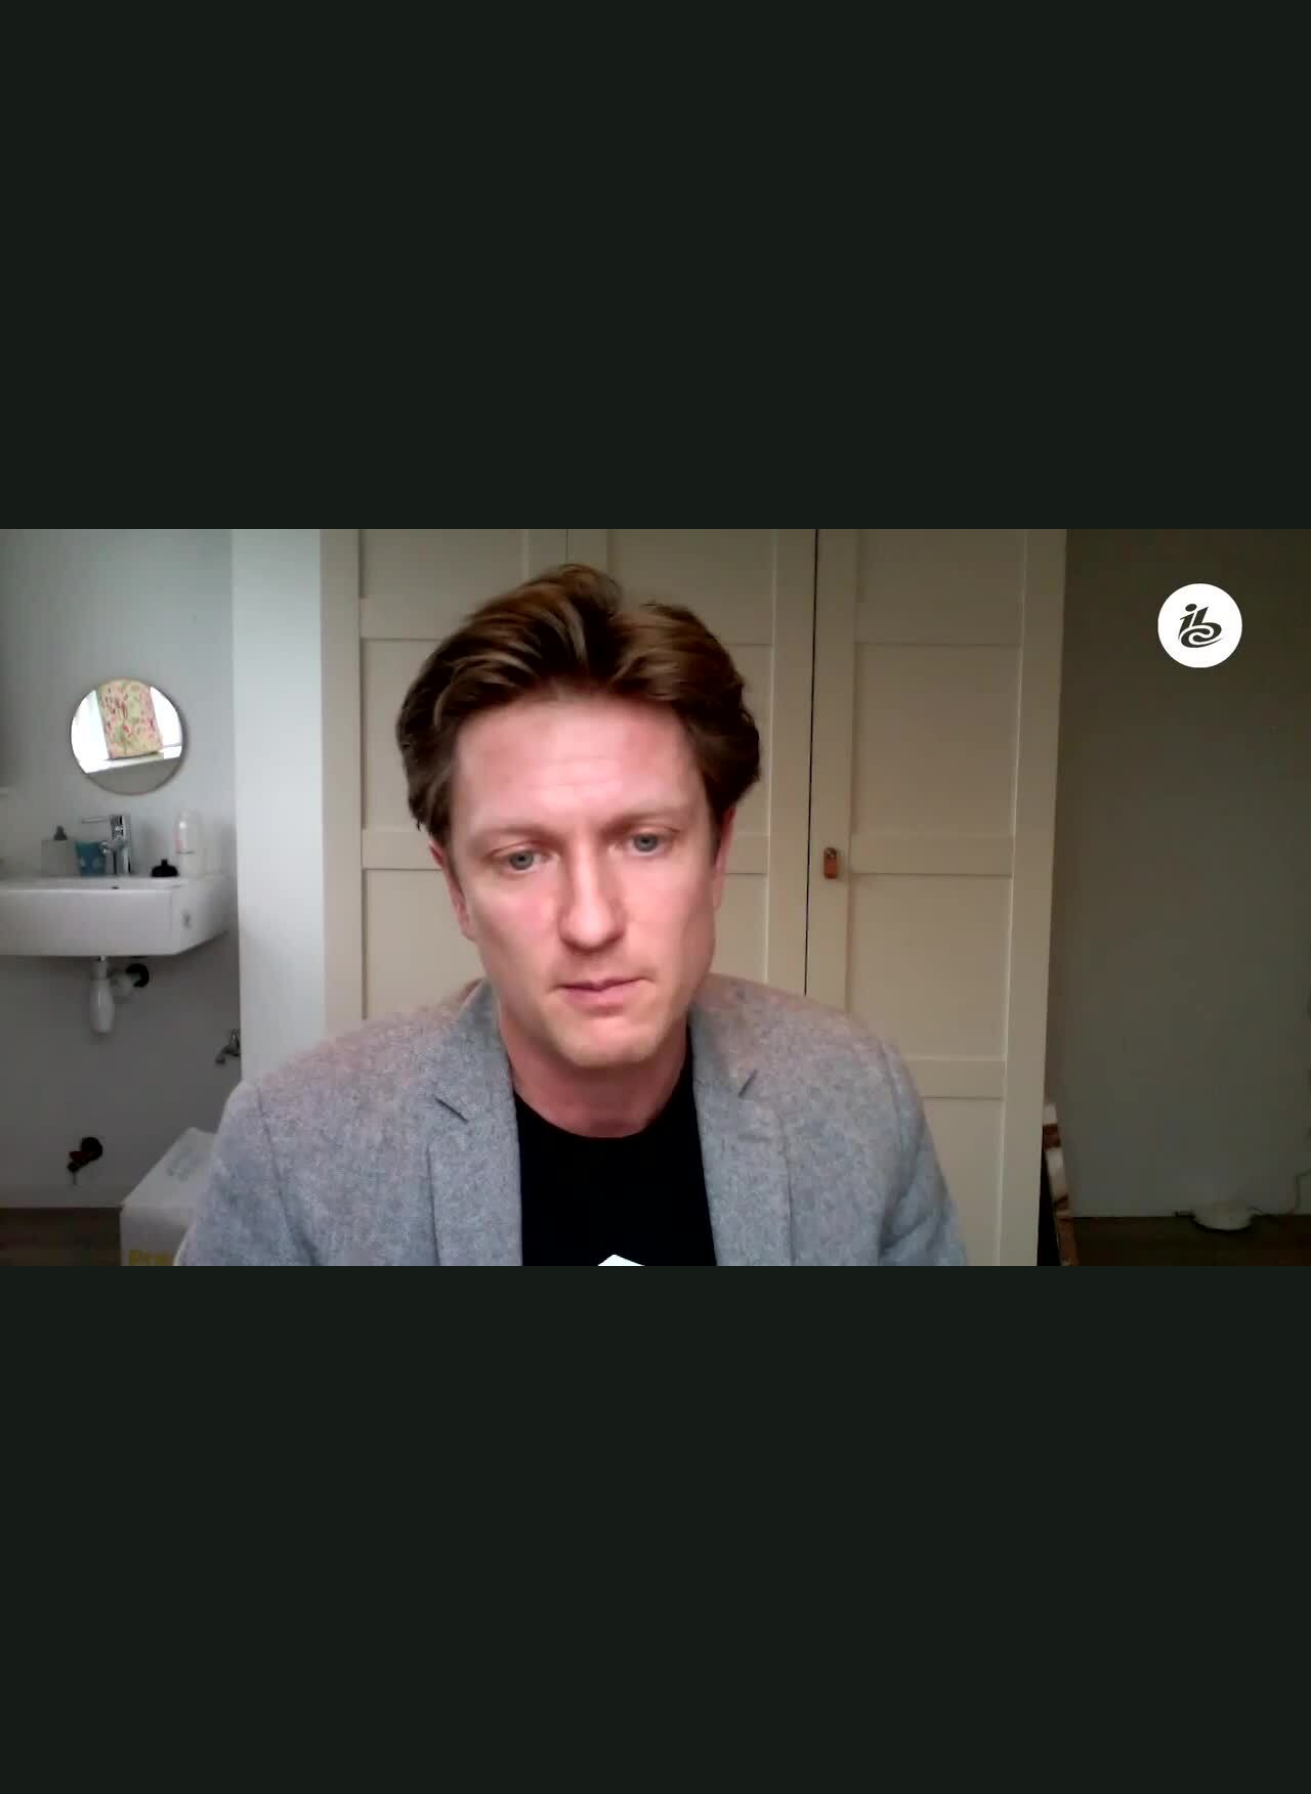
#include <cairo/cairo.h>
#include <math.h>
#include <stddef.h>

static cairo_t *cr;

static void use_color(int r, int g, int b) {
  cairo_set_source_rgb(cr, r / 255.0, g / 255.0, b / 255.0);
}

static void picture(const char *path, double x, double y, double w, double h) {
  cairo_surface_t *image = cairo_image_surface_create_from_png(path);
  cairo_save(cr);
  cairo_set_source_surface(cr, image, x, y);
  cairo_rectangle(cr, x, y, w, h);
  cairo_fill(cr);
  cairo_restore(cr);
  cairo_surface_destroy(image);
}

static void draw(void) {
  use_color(21, 27, 23);
  cairo_paint(cr);
  picture("img_01.png", 0, 529, 1311, 737);
}

int main(void) {
  cairo_surface_t *surface = cairo_image_surface_create(CAIRO_FORMAT_RGB24, 1311, 1794);
  cr = cairo_create(surface);
  cairo_font_options_t *options = cairo_font_options_create();
  cairo_font_options_set_hint_metrics(options, CAIRO_HINT_METRICS_OFF);
  cairo_font_options_set_hint_style(options, CAIRO_HINT_STYLE_NONE);
  cairo_set_font_options(cr, options);
  cairo_set_miter_limit(cr, 4);
  draw();
  cairo_surface_write_to_png(surface, "out.png");
  cairo_font_options_destroy(options);
  cairo_destroy(cr);
  cairo_surface_destroy(surface);
  return 0;
}
